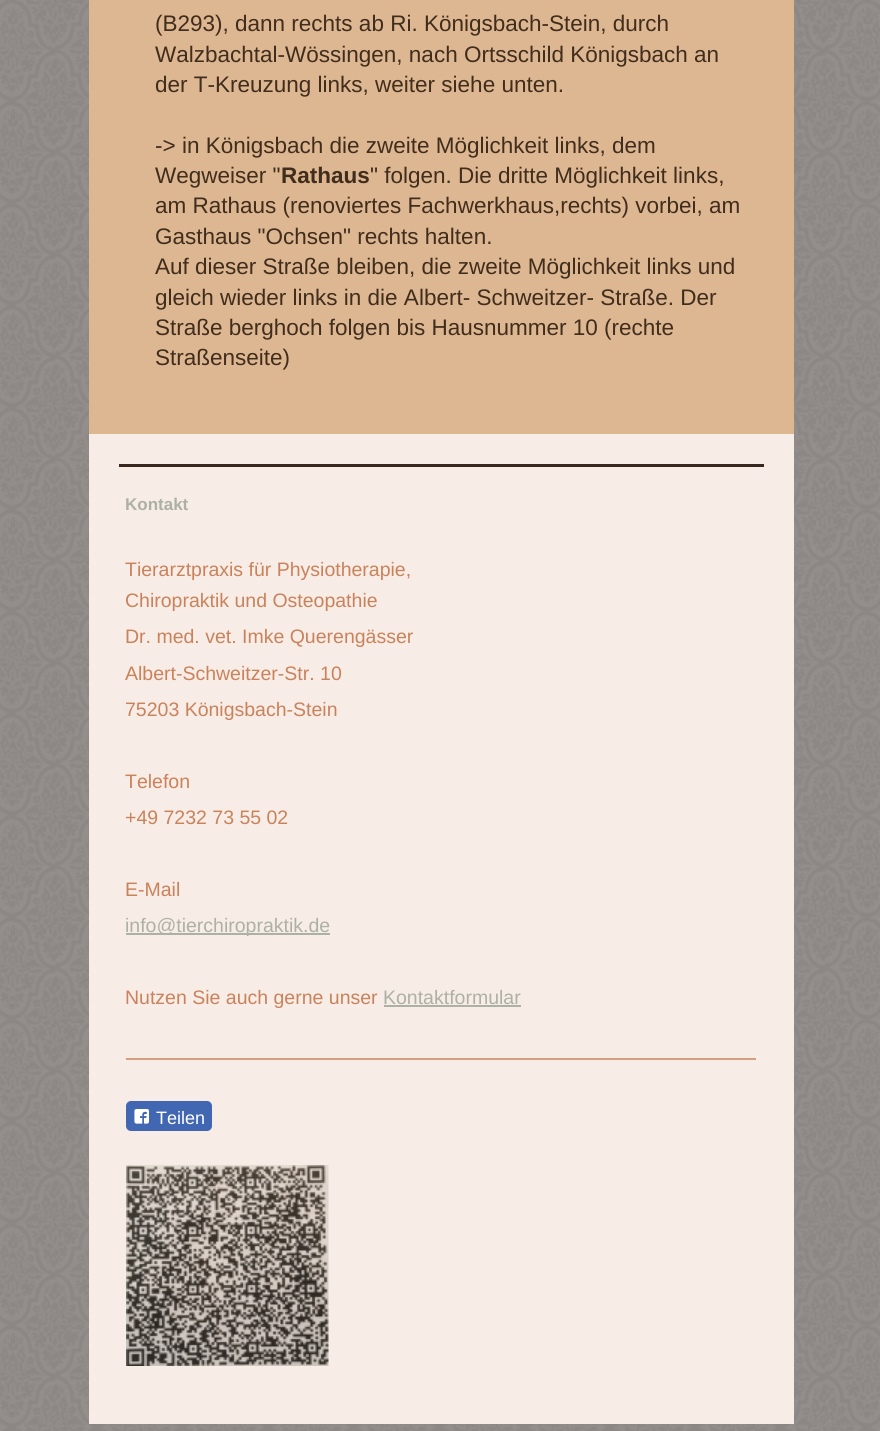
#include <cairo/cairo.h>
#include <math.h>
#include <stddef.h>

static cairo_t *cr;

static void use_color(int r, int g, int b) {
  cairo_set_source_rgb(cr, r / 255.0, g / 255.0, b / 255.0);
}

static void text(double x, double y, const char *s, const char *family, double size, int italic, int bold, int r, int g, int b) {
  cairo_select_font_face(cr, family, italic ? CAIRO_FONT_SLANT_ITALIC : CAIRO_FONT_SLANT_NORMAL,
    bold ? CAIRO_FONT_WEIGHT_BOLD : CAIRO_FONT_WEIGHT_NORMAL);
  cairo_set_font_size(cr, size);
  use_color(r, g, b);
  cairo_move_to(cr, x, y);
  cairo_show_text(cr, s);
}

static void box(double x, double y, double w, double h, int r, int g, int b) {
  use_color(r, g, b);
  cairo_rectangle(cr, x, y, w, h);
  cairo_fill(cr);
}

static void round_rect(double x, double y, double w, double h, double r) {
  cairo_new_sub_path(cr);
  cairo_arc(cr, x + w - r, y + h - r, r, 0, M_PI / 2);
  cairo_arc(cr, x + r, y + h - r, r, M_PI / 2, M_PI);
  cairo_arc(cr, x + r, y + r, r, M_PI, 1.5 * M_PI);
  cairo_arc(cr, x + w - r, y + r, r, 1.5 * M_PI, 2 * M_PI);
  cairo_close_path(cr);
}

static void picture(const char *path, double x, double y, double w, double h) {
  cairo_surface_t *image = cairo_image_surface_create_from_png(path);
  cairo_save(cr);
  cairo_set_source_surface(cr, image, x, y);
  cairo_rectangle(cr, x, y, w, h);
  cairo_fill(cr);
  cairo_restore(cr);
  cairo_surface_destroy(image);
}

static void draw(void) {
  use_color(94, 79, 70);
  cairo_paint(cr);
  picture("img_01.png", 0, 0, 880, 1431);
  box(89, 0, 705, 434, 221, 182, 146);
  box(89, 434, 705, 990, 247, 236, 230);
  box(119, 464, 645, 3, 56, 39, 28);
  box(126, 933, 204, 2, 172, 177, 166);
  box(384, 1005, 137, 2, 172, 177, 166);
  box(126, 1058, 630, 2, 214, 157, 126);
  use_color(66, 103, 178);
  round_rect(126, 1101, 86, 30, 5);
  cairo_fill(cr);
  picture("img_02.png", 134, 1109, 15, 15);
  picture("img_03.png", 126, 1165, 203, 201);
  text(155, 31, "(B293), dann rechts ab Ri. Königsbach-Stein, durch", "Liberation Sans", 22.5, 0, 0, 64, 45, 28);
  text(155, 62, "Walzbachtal-Wössingen, nach Ortsschild Königsbach an", "Liberation Sans", 22.5, 0, 0, 64, 45, 28);
  text(155, 92, "der T-Kreuzung links, weiter siehe unten.", "Liberation Sans", 22.5, 0, 0, 64, 45, 28);
  text(155, 153, "-> in Königsbach die zweite Möglichkeit links, dem", "Liberation Sans", 22.5, 0, 0, 64, 45, 28);
  text(155, 183, "Wegweiser \"", "Liberation Sans", 22.5, 0, 0, 64, 45, 28);
  text(281, 183, "Rathaus", "Liberation Sans", 22.5, 0, 1, 64, 45, 28);
  text(370, 183, "\" folgen. Die dritte Möglichkeit links,", "Liberation Sans", 22.5, 0, 0, 64, 45, 28);
  text(155, 213, "am Rathaus (renoviertes Fachwerkhaus,rechts) vorbei, am", "Liberation Sans", 22.5, 0, 0, 64, 45, 28);
  text(155, 244, "Gasthaus \"Ochsen\" rechts halten.", "Liberation Sans", 22.5, 0, 0, 64, 45, 28);
  text(155, 274, "Auf dieser Straße bleiben, die zweite Möglichkeit links und", "Liberation Sans", 22.5, 0, 0, 64, 45, 28);
  text(155, 305, "gleich wieder links in die Albert- Schweitzer- Straße. Der", "Liberation Sans", 22.5, 0, 0, 64, 45, 28);
  text(155, 335, "Straße berghoch folgen bis Hausnummer 10 (rechte", "Liberation Sans", 22.5, 0, 0, 64, 45, 28);
  text(155, 365, "Straßenseite)", "Liberation Sans", 22.5, 0, 0, 64, 45, 28);
  text(125, 510, "Kontakt", "Liberation Sans", 17, 0, 1, 172, 177, 166);
  text(125, 576, "Tierarztpraxis für Physiotherapie,", "Liberation Sans", 19.5, 0, 0, 202, 130, 91);
  text(125, 607, "Chiropraktik und Osteopathie", "Liberation Sans", 19.5, 0, 0, 202, 130, 91);
  text(125, 643, "Dr. med. vet. Imke Querengässer", "Liberation Sans", 19.5, 0, 0, 202, 130, 91);
  text(125, 680, "Albert-Schweitzer-Str. 10", "Liberation Sans", 19.5, 0, 0, 202, 130, 91);
  text(125, 716, "75203 Königsbach-Stein", "Liberation Sans", 19.5, 0, 0, 202, 130, 91);
  text(125, 788, "Telefon", "Liberation Sans", 19.5, 0, 0, 202, 130, 91);
  text(125, 824, "+49 7232 73 55 02", "Liberation Sans", 19.5, 0, 0, 202, 130, 91);
  text(125, 896, "E-Mail", "Liberation Sans", 19.5, 0, 0, 202, 130, 91);
  text(125, 932, "info@tierchiropraktik.de", "Liberation Sans", 19.5, 0, 0, 172, 177, 166);
  text(125, 1004, "Nutzen Sie auch gerne unser", "Liberation Sans", 19.5, 0, 0, 202, 130, 91);
  text(383, 1004, "Kontaktformular", "Liberation Sans", 19.5, 0, 0, 172, 177, 166);
  text(156, 1124, "Teilen", "Liberation Sans", 18, 0, 0, 255, 255, 255);
}

int main(void) {
  cairo_surface_t *surface = cairo_image_surface_create(CAIRO_FORMAT_RGB24, 880, 1431);
  cr = cairo_create(surface);
  cairo_font_options_t *options = cairo_font_options_create();
  cairo_font_options_set_hint_metrics(options, CAIRO_HINT_METRICS_OFF);
  cairo_font_options_set_hint_style(options, CAIRO_HINT_STYLE_NONE);
  cairo_set_font_options(cr, options);
  cairo_set_miter_limit(cr, 4);
  draw();
  cairo_surface_write_to_png(surface, "out.png");
  cairo_font_options_destroy(options);
  cairo_destroy(cr);
  cairo_surface_destroy(surface);
  return 0;
}
